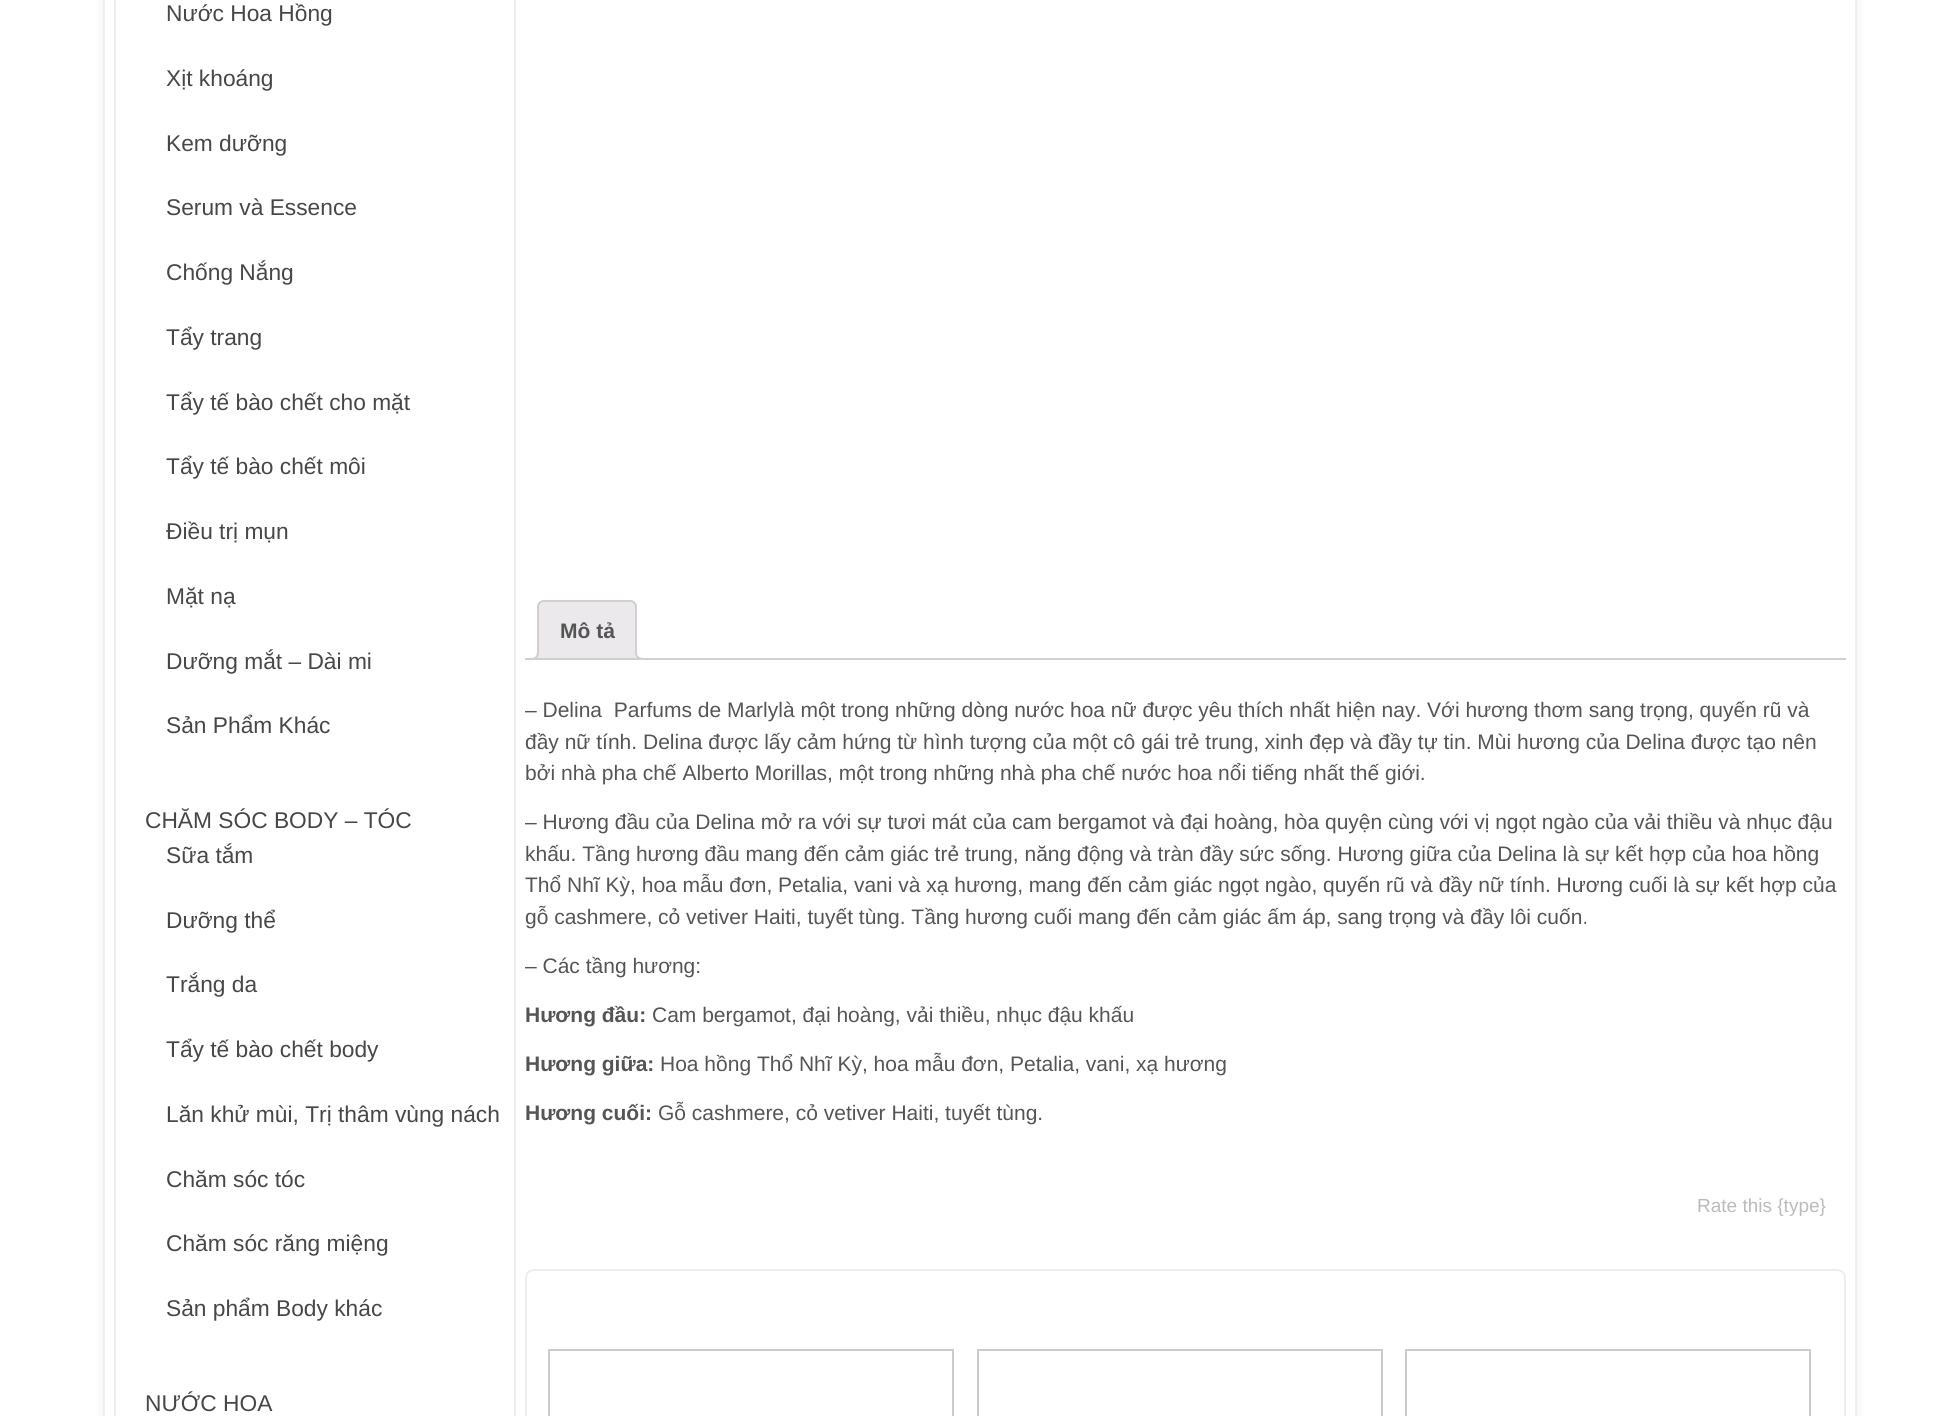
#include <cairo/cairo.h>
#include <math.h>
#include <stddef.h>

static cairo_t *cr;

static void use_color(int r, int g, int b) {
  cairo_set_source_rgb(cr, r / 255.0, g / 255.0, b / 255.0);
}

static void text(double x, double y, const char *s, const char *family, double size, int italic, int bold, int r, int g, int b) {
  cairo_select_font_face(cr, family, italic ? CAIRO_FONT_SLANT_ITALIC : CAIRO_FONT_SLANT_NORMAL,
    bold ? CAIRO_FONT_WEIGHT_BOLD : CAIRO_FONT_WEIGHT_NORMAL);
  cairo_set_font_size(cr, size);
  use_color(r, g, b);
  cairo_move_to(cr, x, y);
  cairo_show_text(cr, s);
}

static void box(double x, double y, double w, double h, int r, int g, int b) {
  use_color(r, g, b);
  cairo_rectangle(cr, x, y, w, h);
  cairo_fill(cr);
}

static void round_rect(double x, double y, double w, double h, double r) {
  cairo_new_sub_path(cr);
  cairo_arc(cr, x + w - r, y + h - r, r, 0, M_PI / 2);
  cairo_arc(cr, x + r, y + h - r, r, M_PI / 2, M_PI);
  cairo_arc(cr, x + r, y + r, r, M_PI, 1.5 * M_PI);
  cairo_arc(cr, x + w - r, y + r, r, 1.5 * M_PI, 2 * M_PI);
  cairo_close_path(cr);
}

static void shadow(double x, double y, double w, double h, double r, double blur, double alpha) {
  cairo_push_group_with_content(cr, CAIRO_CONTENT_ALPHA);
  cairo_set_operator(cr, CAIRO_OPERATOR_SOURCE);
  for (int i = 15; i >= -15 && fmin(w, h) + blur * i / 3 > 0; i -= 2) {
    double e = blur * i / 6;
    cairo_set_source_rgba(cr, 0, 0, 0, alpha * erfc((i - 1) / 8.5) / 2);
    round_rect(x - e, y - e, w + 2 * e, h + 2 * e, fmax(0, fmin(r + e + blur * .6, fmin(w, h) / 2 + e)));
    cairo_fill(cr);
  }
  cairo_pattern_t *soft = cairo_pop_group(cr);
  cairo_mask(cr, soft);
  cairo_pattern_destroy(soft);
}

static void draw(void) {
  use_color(255, 255, 255);
  cairo_paint(cr);
  use_color(238, 238, 238);
  shadow(103, -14, 1754, 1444, 0, 4.5, 1);
  box(105, 0, 1750, 1416, 255, 255, 255);
  box(1855, 0, 2, 1416, 238, 238, 238);
  box(103, 0, 2, 1416, 238, 238, 238);
  cairo_rectangle(cr, 115, -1, 400, 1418);
  cairo_stroke(cr);
  use_color(235, 233, 235);
  cairo_new_path(cr);
  cairo_move_to(cr, 544, 601);
  cairo_line_to(cr, 630, 601);
  cairo_curve_to(cr, 633.5, 601, 636, 603.5, 636, 607);
  cairo_line_to(cr, 636, 659);
  cairo_line_to(cr, 538, 659);
  cairo_line_to(cr, 538, 607);
  cairo_curve_to(cr, 538, 603.5, 540.5, 601, 544, 601);
  cairo_close_path(cr);
  cairo_fill_preserve(cr);
  use_color(211, 206, 210);
  cairo_stroke(cr);
  cairo_save(cr);
  cairo_rectangle(cr, 525, 600, 1321, 60);
  cairo_clip(cr);
  use_color(235, 233, 235);
  cairo_new_path(cr);
  cairo_move_to(cr, 532, 660);
  cairo_line_to(cr, 532, 663);
  cairo_curve_to(cr, 540, 663, 543, 662, 543, 653);
  cairo_line_to(cr, 539, 653);
  cairo_curve_to(cr, 539, 657, 536, 660, 532, 660);
  cairo_close_path(cr);
  cairo_fill(cr);
  cairo_restore(cr);
  cairo_set_fill_rule(cr, CAIRO_FILL_RULE_EVEN_ODD);
  cairo_new_path(cr);
  cairo_move_to(cr, 528.5, 649);
  cairo_line_to(cr, 539, 649);
  cairo_curve_to(cr, 539, 658, 537, 660, 528.5, 660);
  cairo_close_path(cr);
  cairo_move_to(cr, 528.5, 649);
  cairo_line_to(cr, 537, 649);
  cairo_curve_to(cr, 537, 657, 536, 658, 528.5, 658);
  cairo_close_path(cr);
  cairo_fill(cr);
  cairo_save(cr);
  cairo_set_fill_rule(cr, CAIRO_FILL_RULE_WINDING);
  cairo_rectangle(cr, 525, 600, 1321, 60);
  cairo_clip(cr);
  use_color(235, 233, 235);
  cairo_new_path(cr);
  cairo_move_to(cr, 632, 653);
  cairo_curve_to(cr, 632, 661, 634, 663, 642, 663);
  cairo_line_to(cr, 642, 659.5);
  cairo_curve_to(cr, 638.5, 659.5, 635.5, 656.5, 635.5, 653);
  cairo_close_path(cr);
  cairo_fill(cr);
  cairo_restore(cr);
  cairo_new_path(cr);
  cairo_move_to(cr, 635, 649);
  cairo_line_to(cr, 646, 649);
  cairo_line_to(cr, 646, 660);
  cairo_line_to(cr, 642, 660);
  cairo_curve_to(cr, 638.5, 660, 635, 656.5, 635, 653);
  cairo_close_path(cr);
  cairo_move_to(cr, 637, 649);
  cairo_line_to(cr, 646, 649);
  cairo_line_to(cr, 646, 658);
  cairo_curve_to(cr, 642, 658, 637, 658, 637, 653);
  cairo_close_path(cr);
  cairo_fill(cr);
  box(525, 658, 1321, 2, 211, 206, 210);
  round_rect(526, 1270, 1319, 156, 8);
  use_color(238, 238, 238);
  cairo_stroke(cr);
  cairo_rectangle(cr, 549, 1350, 404, 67);
  use_color(204, 204, 204);
  cairo_stroke(cr);
  cairo_rectangle(cr, 978, 1350, 404, 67);
  cairo_stroke(cr);
  cairo_rectangle(cr, 1406, 1350, 404, 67);
  cairo_stroke(cr);
  text(166, 21, "Nước Hoa Hồng", "Liberation Sans", 22.75, 0, 0, 71, 71, 71);
  text(166, 86, "Xịt khoáng", "Liberation Sans", 22.75, 0, 0, 71, 71, 71);
  text(166, 151, "Kem dưỡng", "Liberation Sans", 22.75, 0, 0, 71, 71, 71);
  text(166, 215, "Serum và Essence", "Liberation Sans", 22.75, 0, 0, 71, 71, 71);
  text(166, 280, "Chống Nắng", "Liberation Sans", 22.75, 0, 0, 71, 71, 71);
  text(166, 345, "Tẩy trang", "Liberation Sans", 22.75, 0, 0, 71, 71, 71);
  text(166, 410, "Tẩy tế bào chết cho mặt", "Liberation Sans", 22.75, 0, 0, 71, 71, 71);
  text(166, 474, "Tẩy tế bào chết môi", "Liberation Sans", 22.75, 0, 0, 71, 71, 71);
  text(166, 539, "Điều trị mụn", "Liberation Sans", 22.75, 0, 0, 71, 71, 71);
  text(166, 604, "Mặt nạ", "Liberation Sans", 22.75, 0, 0, 71, 71, 71);
  text(166, 669, "Dưỡng mắt – Dài mi", "Liberation Sans", 22.75, 0, 0, 71, 71, 71);
  text(166, 733, "Sản Phẩm Khác", "Liberation Sans", 22.75, 0, 0, 71, 71, 71);
  text(145, 828, "CHĂM SÓC BODY – TÓC", "Liberation Sans", 22.75, 0, 0, 71, 71, 71);
  text(166, 863, "Sữa tắm", "Liberation Sans", 22.75, 0, 0, 71, 71, 71);
  text(166, 928, "Dưỡng thể", "Liberation Sans", 22.75, 0, 0, 71, 71, 71);
  text(166, 992, "Trắng da", "Liberation Sans", 22.75, 0, 0, 71, 71, 71);
  text(166, 1057, "Tẩy tế bào chết body", "Liberation Sans", 22.75, 0, 0, 71, 71, 71);
  text(166, 1122, "Lăn khử mùi, Trị thâm vùng nách", "Liberation Sans", 22.75, 0, 0, 71, 71, 71);
  text(166, 1187, "Chăm sóc tóc", "Liberation Sans", 22.75, 0, 0, 71, 71, 71);
  text(166, 1251, "Chăm sóc răng miệng", "Liberation Sans", 22.75, 0, 0, 71, 71, 71);
  text(166, 1316, "Sản phẩm Body khác", "Liberation Sans", 22.75, 0, 0, 71, 71, 71);
  text(145, 1411, "NƯỚC HOA", "Liberation Sans", 22.75, 0, 0, 71, 71, 71);
  text(560, 638, "Mô tả", "Liberation Sans", 21, 0, 1, 85, 85, 85);
  text(525, 717, "– Delina  Parfums de Marlylà một trong những dòng nước hoa nữ được yêu thích nhất hiện nay. Với hương thơm sang trọng, quyến rũ và", "Liberation Sans", 21, 0, 0, 85, 85, 85);
  text(525, 749, "đầy nữ tính. Delina được lấy cảm hứng từ hình tượng của một cô gái trẻ trung, xinh đẹp và đầy tự tin. Mùi hương của Delina được tạo nên", "Liberation Sans", 21, 0, 0, 85, 85, 85);
  text(525, 780, "bởi nhà pha chế Alberto Morillas, một trong những nhà pha chế nước hoa nổi tiếng nhất thế giới.", "Liberation Sans", 21, 0, 0, 85, 85, 85);
  text(525, 829, "– Hương đầu của Delina mở ra với sự tươi mát của cam bergamot và đại hoàng, hòa quyện cùng với vị ngọt ngào của vải thiều và nhục đậu", "Liberation Sans", 21, 0, 0, 85, 85, 85);
  text(525, 861, "khấu. Tầng hương đầu mang đến cảm giác trẻ trung, năng động và tràn đầy sức sống. Hương giữa của Delina là sự kết hợp của hoa hồng", "Liberation Sans", 21, 0, 0, 85, 85, 85);
  text(525, 892, "Thổ Nhĩ Kỳ, hoa mẫu đơn, Petalia, vani và xạ hương, mang đến cảm giác ngọt ngào, quyến rũ và đầy nữ tính. Hương cuối là sự kết hợp của", "Liberation Sans", 21, 0, 0, 85, 85, 85);
  text(525, 924, "gỗ cashmere, cỏ vetiver Haiti, tuyết tùng. Tầng hương cuối mang đến cảm giác ấm áp, sang trọng và đầy lôi cuốn.", "Liberation Sans", 21, 0, 0, 85, 85, 85);
  text(525, 973, "– Các tầng hương:", "Liberation Sans", 21, 0, 0, 85, 85, 85);
  text(525, 1022, "Hương đầu:", "Liberation Sans", 21, 0, 1, 85, 85, 85);
  text(652, 1022, "Cam bergamot, đại hoàng, vải thiều, nhục đậu khấu", "Liberation Sans", 21, 0, 0, 85, 85, 85);
  text(525, 1071, "Hương giữa:", "Liberation Sans", 21, 0, 1, 85, 85, 85);
  text(660, 1071, "Hoa hồng Thổ Nhĩ Kỳ, hoa mẫu đơn, Petalia, vani, xạ hương", "Liberation Sans", 21, 0, 0, 85, 85, 85);
  text(525, 1120, "Hương cuối:", "Liberation Sans", 21, 0, 1, 85, 85, 85);
  text(658, 1120, "Gỗ cashmere, cỏ vetiver Haiti, tuyết tùng.", "Liberation Sans", 21, 0, 0, 85, 85, 85);
  text(1697, 1212, "Rate this {type}", "Liberation Sans", 19, 0, 0, 187, 187, 187);
}

int main(void) {
  cairo_surface_t *surface = cairo_image_surface_create(CAIRO_FORMAT_RGB24, 1959, 1416);
  cr = cairo_create(surface);
  cairo_font_options_t *options = cairo_font_options_create();
  cairo_font_options_set_hint_metrics(options, CAIRO_HINT_METRICS_OFF);
  cairo_font_options_set_hint_style(options, CAIRO_HINT_STYLE_NONE);
  cairo_set_font_options(cr, options);
  cairo_set_miter_limit(cr, 4);
  draw();
  cairo_surface_write_to_png(surface, "out.png");
  cairo_font_options_destroy(options);
  cairo_destroy(cr);
  cairo_surface_destroy(surface);
  return 0;
}
